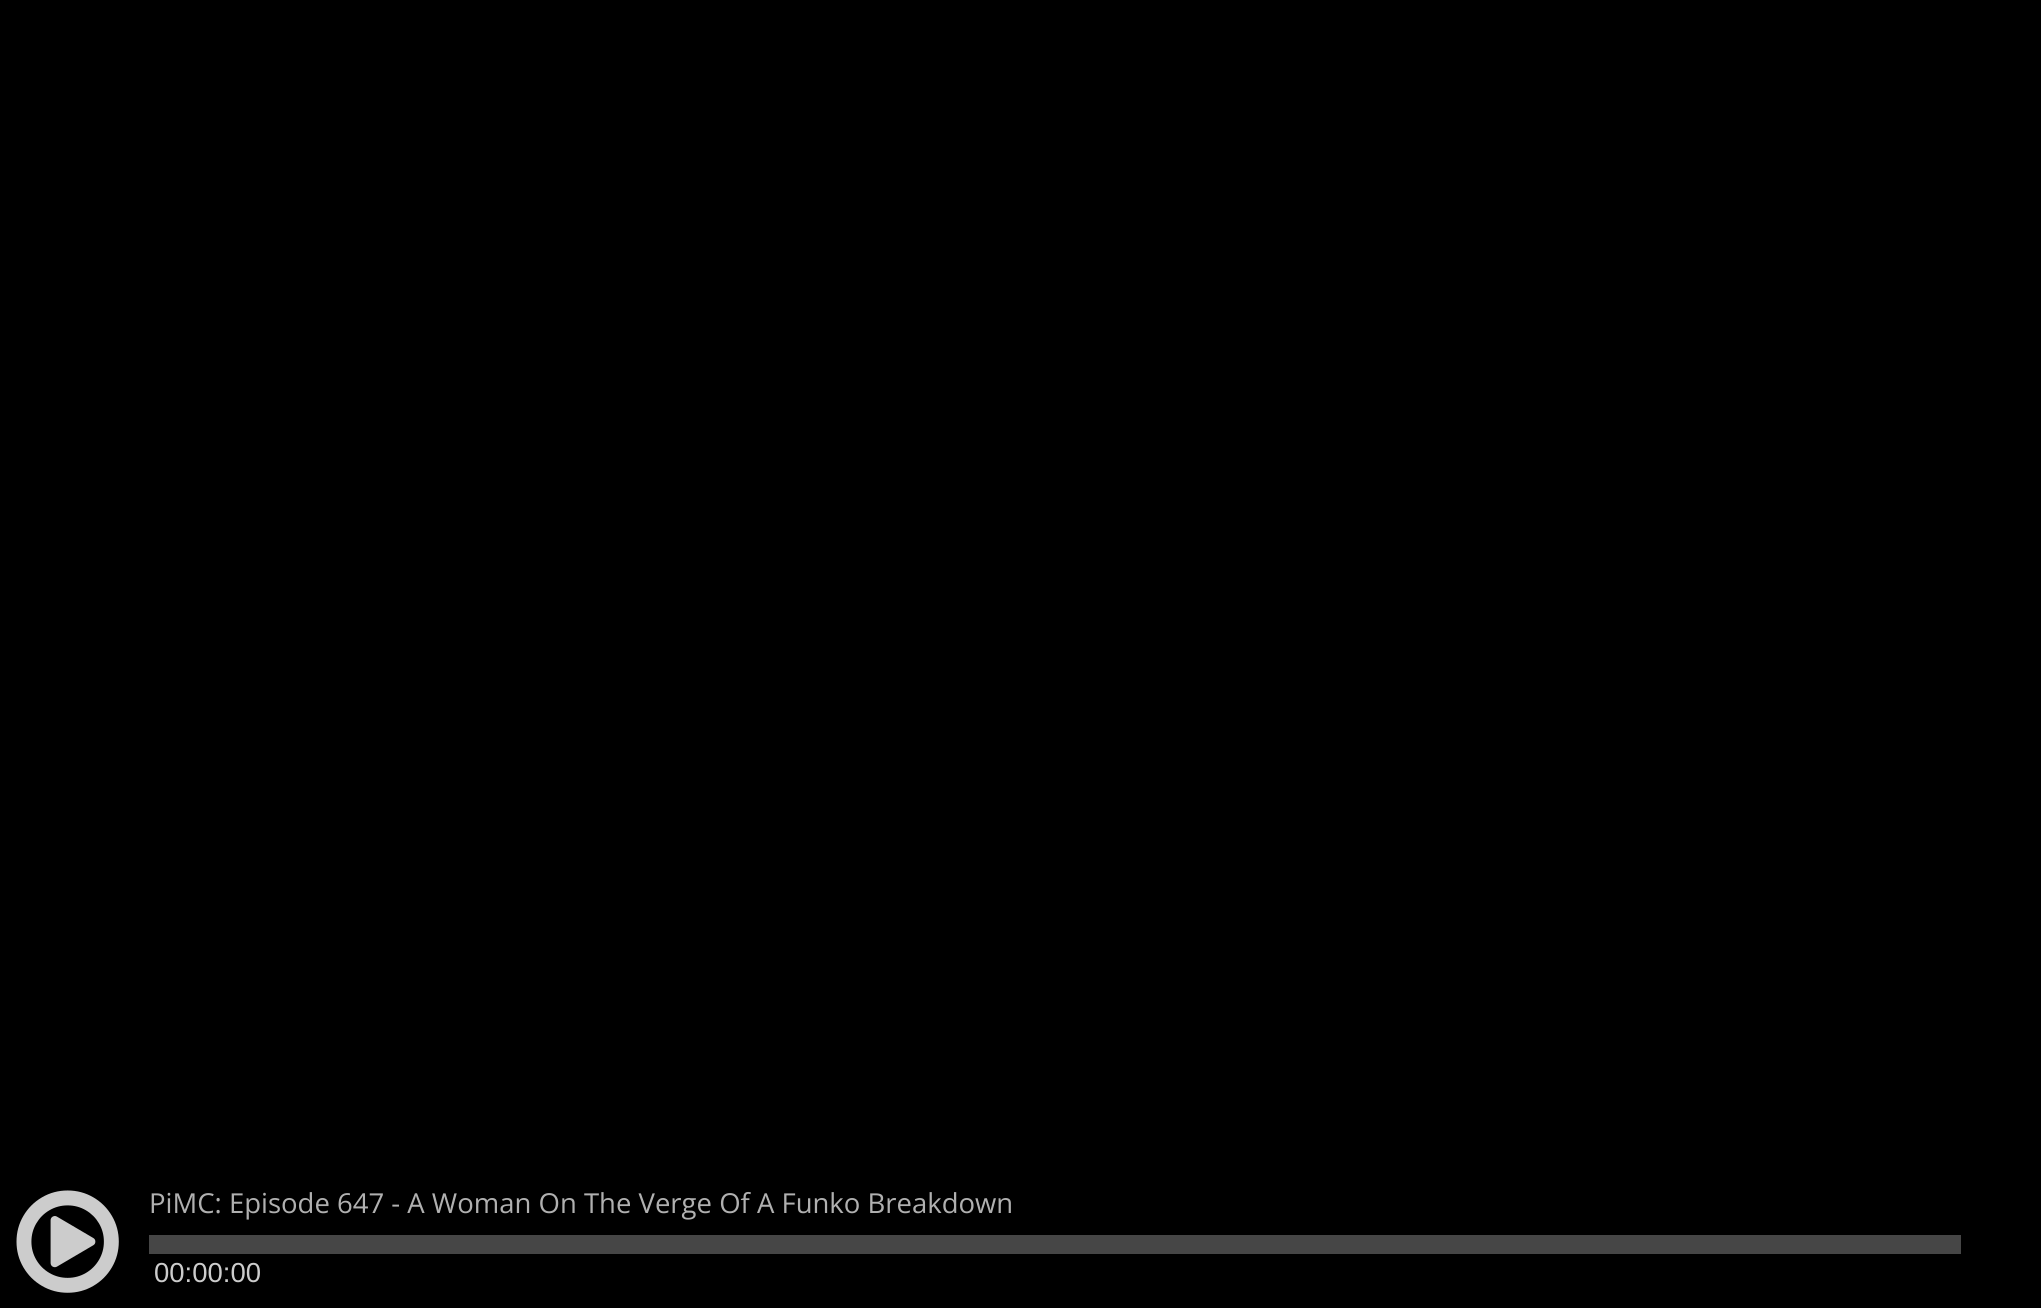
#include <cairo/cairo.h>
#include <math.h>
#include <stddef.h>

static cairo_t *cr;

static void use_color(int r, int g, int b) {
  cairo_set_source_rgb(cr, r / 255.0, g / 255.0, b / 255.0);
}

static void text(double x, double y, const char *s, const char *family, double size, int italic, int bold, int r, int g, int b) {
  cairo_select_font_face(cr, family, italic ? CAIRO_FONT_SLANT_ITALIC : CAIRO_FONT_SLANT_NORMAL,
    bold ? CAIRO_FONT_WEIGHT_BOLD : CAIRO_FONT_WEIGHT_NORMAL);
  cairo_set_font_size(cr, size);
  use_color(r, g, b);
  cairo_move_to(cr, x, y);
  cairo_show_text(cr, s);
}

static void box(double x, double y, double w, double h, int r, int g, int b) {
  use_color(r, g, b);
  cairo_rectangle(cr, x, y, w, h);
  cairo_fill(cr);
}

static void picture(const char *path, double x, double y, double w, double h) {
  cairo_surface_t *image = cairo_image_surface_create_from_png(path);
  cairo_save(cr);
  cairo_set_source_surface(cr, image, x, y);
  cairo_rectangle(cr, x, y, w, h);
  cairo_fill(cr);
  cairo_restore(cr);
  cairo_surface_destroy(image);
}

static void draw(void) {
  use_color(0, 0, 0);
  cairo_paint(cr);
  picture("img_01.png", 16, 1190, 103, 103);
  box(149, 1235, 1812, 19, 70, 70, 70);
  text(149, 1213, "PiMC: Episode 647 - A Woman On The Verge Of A Funko Breakdown", "Open Sans", 27.5, 0, 0, 176, 176, 176);
  text(154, 1282, "00:00:00", "Liberation Sans", 27.5, 0, 0, 204, 204, 204);
}

int main(void) {
  cairo_surface_t *surface = cairo_image_surface_create(CAIRO_FORMAT_RGB24, 2041, 1308);
  cr = cairo_create(surface);
  cairo_font_options_t *options = cairo_font_options_create();
  cairo_font_options_set_hint_metrics(options, CAIRO_HINT_METRICS_OFF);
  cairo_font_options_set_hint_style(options, CAIRO_HINT_STYLE_NONE);
  cairo_set_font_options(cr, options);
  cairo_set_miter_limit(cr, 4);
  draw();
  cairo_surface_write_to_png(surface, "out.png");
  cairo_font_options_destroy(options);
  cairo_destroy(cr);
  cairo_surface_destroy(surface);
  return 0;
}
